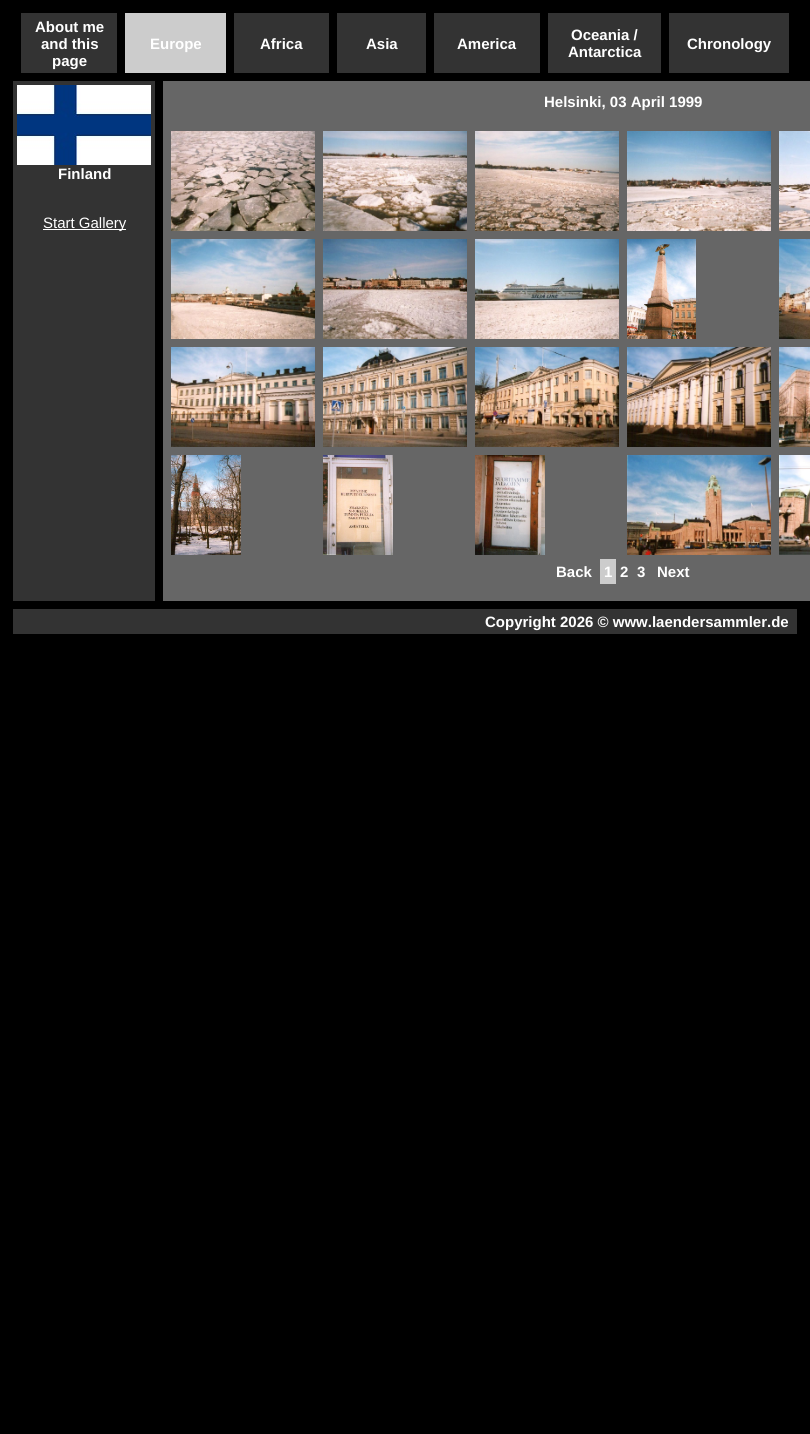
#include <cairo/cairo.h>
#include <math.h>
#include <stddef.h>

static cairo_t *cr;

static void use_color(int r, int g, int b) {
  cairo_set_source_rgb(cr, r / 255.0, g / 255.0, b / 255.0);
}

static void text(double x, double y, const char *s, const char *family, double size, int italic, int bold, int r, int g, int b) {
  cairo_select_font_face(cr, family, italic ? CAIRO_FONT_SLANT_ITALIC : CAIRO_FONT_SLANT_NORMAL,
    bold ? CAIRO_FONT_WEIGHT_BOLD : CAIRO_FONT_WEIGHT_NORMAL);
  cairo_set_font_size(cr, size);
  use_color(r, g, b);
  cairo_move_to(cr, x, y);
  cairo_show_text(cr, s);
}

static void box(double x, double y, double w, double h, int r, int g, int b) {
  use_color(r, g, b);
  cairo_rectangle(cr, x, y, w, h);
  cairo_fill(cr);
}

static void picture(const char *path, double x, double y, double w, double h) {
  cairo_surface_t *image = cairo_image_surface_create_from_png(path);
  cairo_save(cr);
  cairo_set_source_surface(cr, image, x, y);
  cairo_rectangle(cr, x, y, w, h);
  cairo_fill(cr);
  cairo_restore(cr);
  cairo_surface_destroy(image);
}

static void draw(void) {
  use_color(0, 0, 0);
  cairo_paint(cr);
  box(21, 13, 96, 60, 51, 51, 51);
  box(125, 13, 101, 60, 204, 204, 204);
  box(234, 13, 95, 60, 51, 51, 51);
  box(337, 13, 89, 60, 51, 51, 51);
  box(434, 13, 106, 60, 51, 51, 51);
  box(548, 13, 113, 60, 51, 51, 51);
  box(669, 13, 120, 60, 51, 51, 51);
  box(13, 81, 142, 520, 51, 51, 51);
  picture("img_01.png", 17, 85, 134, 80);
  box(43, 229, 83, 1, 255, 255, 255);
  box(163, 81, 647, 520, 102, 102, 102);
  picture("img_02.png", 171, 131, 144, 100);
  picture("img_03.png", 323, 131, 144, 100);
  picture("img_04.png", 475, 131, 144, 100);
  picture("img_05.png", 627, 131, 144, 100);
  picture("img_06.png", 779, 131, 31, 100);
  picture("img_07.png", 171, 239, 144, 100);
  picture("img_08.png", 323, 239, 144, 100);
  picture("img_09.png", 475, 239, 144, 100);
  picture("img_10.png", 627, 239, 69, 100);
  picture("img_11.png", 779, 239, 31, 100);
  picture("img_12.png", 171, 347, 144, 100);
  picture("img_13.png", 323, 347, 144, 100);
  picture("img_14.png", 475, 347, 144, 100);
  picture("img_15.png", 627, 347, 144, 100);
  picture("img_16.png", 779, 347, 31, 100);
  picture("img_17.png", 171, 455, 70, 100);
  picture("img_18.png", 323, 455, 70, 100);
  picture("img_19.png", 475, 455, 70, 100);
  picture("img_20.png", 627, 455, 144, 100);
  picture("img_21.png", 779, 455, 31, 100);
  box(600, 559, 16, 25, 204, 204, 204);
  box(13, 609, 784, 25, 51, 51, 51);
  text(35, 32, "About me", "Liberation Sans", 15, 0, 1, 255, 255, 255);
  text(41, 49, "and this", "Liberation Sans", 15, 0, 1, 255, 255, 255);
  text(52, 66, "page", "Liberation Sans", 15, 0, 1, 255, 255, 255);
  text(150, 49, "Europe", "Liberation Sans", 15, 0, 1, 255, 255, 255);
  text(260, 49, "Africa", "Liberation Sans", 15, 0, 1, 255, 255, 255);
  text(366, 49, "Asia", "Liberation Sans", 15, 0, 1, 255, 255, 255);
  text(457, 49, "America", "Liberation Sans", 15, 0, 1, 255, 255, 255);
  text(571, 40, "Oceania /", "Liberation Sans", 15, 0, 1, 255, 255, 255);
  text(568, 57, "Antarctica", "Liberation Sans", 15, 0, 1, 255, 255, 255);
  text(687, 49, "Chronology", "Liberation Sans", 15, 0, 1, 255, 255, 255);
  text(58, 179, "Finland", "Liberation Sans", 15, 0, 1, 255, 255, 255);
  text(43, 228, "Start Gallery", "Liberation Sans", 15, 0, 0, 255, 255, 255);
  text(544, 107, "Helsinki, 03 April 1999", "Liberation Sans", 15, 0, 1, 255, 255, 255);
  text(556, 577, "Back", "Liberation Sans", 15, 0, 1, 255, 255, 255);
  text(604, 577, "1", "Liberation Sans", 15, 0, 1, 255, 255, 255);
  text(620, 577, "2", "Liberation Sans", 15, 0, 1, 255, 255, 255);
  text(637, 577, "3", "Liberation Sans", 15, 0, 1, 255, 255, 255);
  text(657, 577, "Next", "Liberation Sans", 15, 0, 1, 255, 255, 255);
  text(485, 627, "Copyright 2026 © www.laendersammler.de", "Liberation Sans", 15, 0, 1, 255, 255, 255);
}

int main(void) {
  cairo_surface_t *surface = cairo_image_surface_create(CAIRO_FORMAT_RGB24, 810, 1434);
  cr = cairo_create(surface);
  cairo_font_options_t *options = cairo_font_options_create();
  cairo_font_options_set_hint_metrics(options, CAIRO_HINT_METRICS_OFF);
  cairo_font_options_set_hint_style(options, CAIRO_HINT_STYLE_NONE);
  cairo_set_font_options(cr, options);
  cairo_set_miter_limit(cr, 4);
  draw();
  cairo_surface_write_to_png(surface, "out.png");
  cairo_font_options_destroy(options);
  cairo_destroy(cr);
  cairo_surface_destroy(surface);
  return 0;
}
